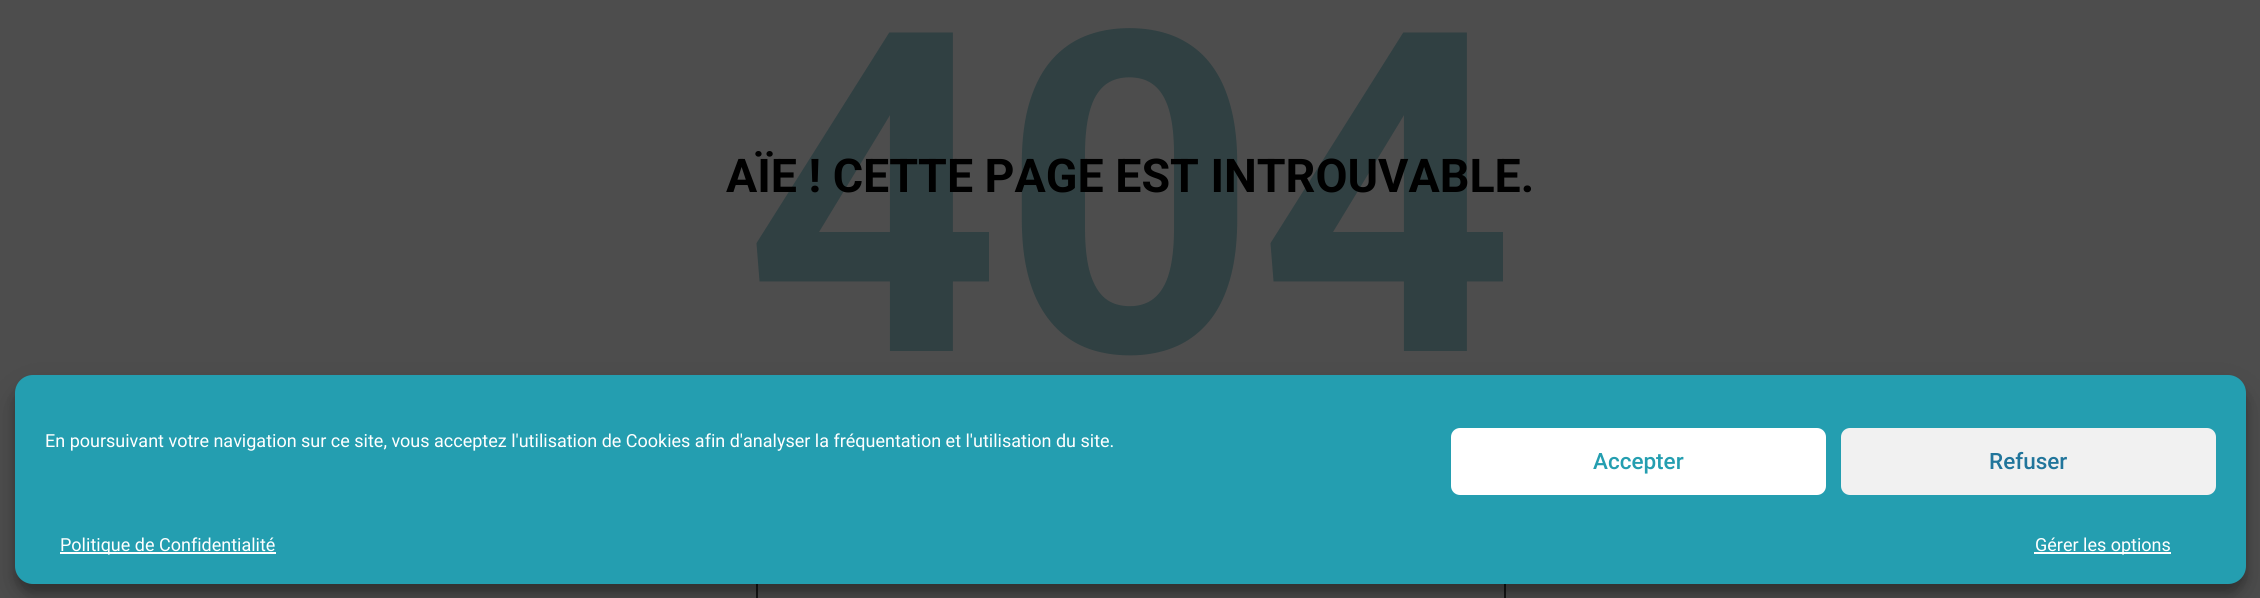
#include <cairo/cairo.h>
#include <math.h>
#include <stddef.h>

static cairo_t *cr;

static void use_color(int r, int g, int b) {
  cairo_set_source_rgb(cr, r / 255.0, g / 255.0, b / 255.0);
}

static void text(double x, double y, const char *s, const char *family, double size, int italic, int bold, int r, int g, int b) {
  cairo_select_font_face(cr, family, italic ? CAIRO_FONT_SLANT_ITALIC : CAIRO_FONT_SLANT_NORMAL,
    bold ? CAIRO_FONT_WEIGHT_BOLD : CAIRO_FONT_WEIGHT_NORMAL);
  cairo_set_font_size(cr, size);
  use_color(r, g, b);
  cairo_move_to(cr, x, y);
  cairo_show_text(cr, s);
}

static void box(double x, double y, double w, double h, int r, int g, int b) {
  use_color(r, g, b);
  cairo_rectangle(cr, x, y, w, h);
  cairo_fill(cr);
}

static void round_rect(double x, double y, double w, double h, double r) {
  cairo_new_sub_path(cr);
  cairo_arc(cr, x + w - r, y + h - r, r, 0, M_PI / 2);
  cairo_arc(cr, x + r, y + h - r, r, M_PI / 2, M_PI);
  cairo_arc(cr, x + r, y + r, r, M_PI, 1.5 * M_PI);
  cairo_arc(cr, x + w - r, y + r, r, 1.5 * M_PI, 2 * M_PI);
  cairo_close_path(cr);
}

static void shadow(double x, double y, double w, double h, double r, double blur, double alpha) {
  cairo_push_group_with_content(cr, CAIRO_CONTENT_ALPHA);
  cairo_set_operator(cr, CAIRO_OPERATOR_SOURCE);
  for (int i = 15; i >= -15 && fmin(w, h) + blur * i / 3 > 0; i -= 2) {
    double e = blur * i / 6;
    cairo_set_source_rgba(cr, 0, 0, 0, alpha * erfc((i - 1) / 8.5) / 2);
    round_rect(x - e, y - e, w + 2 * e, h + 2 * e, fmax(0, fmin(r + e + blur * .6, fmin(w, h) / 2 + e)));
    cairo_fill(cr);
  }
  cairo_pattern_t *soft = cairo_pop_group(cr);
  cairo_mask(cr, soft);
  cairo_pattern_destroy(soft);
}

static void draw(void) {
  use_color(77, 77, 77);
  cairo_paint(cr);
  cairo_rectangle(cr, 757, 583, 748, 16);
  use_color(21, 21, 21);
  cairo_stroke(cr);
  use_color(0, 0, 0);
  shadow(15, 384, 2231, 209, 18, 4.5, 0.23);
  shadow(15, 390, 2231, 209, 18, 15, 0.19);
  use_color(36, 158, 176);
  round_rect(15, 375, 2231, 209, 18);
  cairo_fill(cr);
  use_color(255, 255, 255);
  round_rect(1452, 429, 373, 65, 8);
  cairo_fill_preserve(cr);
  cairo_stroke(cr);
  use_color(241, 241, 241);
  round_rect(1842, 429, 373, 65, 8);
  cairo_fill_preserve(cr);
  cairo_stroke(cr);
  box(60, 552, 216, 2, 255, 255, 255);
  box(2034, 552, 137, 2, 255, 255, 255);
  text(744, 351, "404", "Roboto", 448, 0, 1, 48, 64, 66);
  text(726, 192, "AÏE ! CETTE PAGE EST INTROUVABLE.", "Roboto", 46.5, 0, 1, 0, 0, 0);
  text(45, 447, "En poursuivant votre navigation sur ce site, vous acceptez l'utilisation de Cookies afin d'analyser la fréquentation et l'utilisation du site.", "Roboto", 18, 0, 0, 255, 255, 255);
  text(1593, 469, "Accepter", "Roboto Medium", 22.5, 0, 0, 36, 158, 176);
  text(1989, 469, "Refuser", "Roboto Medium", 22.5, 0, 0, 33, 117, 155);
  text(60, 551, "Politique de Confidentialité", "Roboto", 18, 0, 0, 255, 255, 255);
  text(2035, 551, "Gérer les options", "Roboto", 18, 0, 0, 255, 255, 255);
}

int main(void) {
  cairo_surface_t *surface = cairo_image_surface_create(CAIRO_FORMAT_RGB24, 2260, 598);
  cr = cairo_create(surface);
  cairo_font_options_t *options = cairo_font_options_create();
  cairo_font_options_set_hint_metrics(options, CAIRO_HINT_METRICS_OFF);
  cairo_font_options_set_hint_style(options, CAIRO_HINT_STYLE_NONE);
  cairo_set_font_options(cr, options);
  cairo_set_miter_limit(cr, 4);
  draw();
  cairo_surface_write_to_png(surface, "out.png");
  cairo_font_options_destroy(options);
  cairo_destroy(cr);
  cairo_surface_destroy(surface);
  return 0;
}
